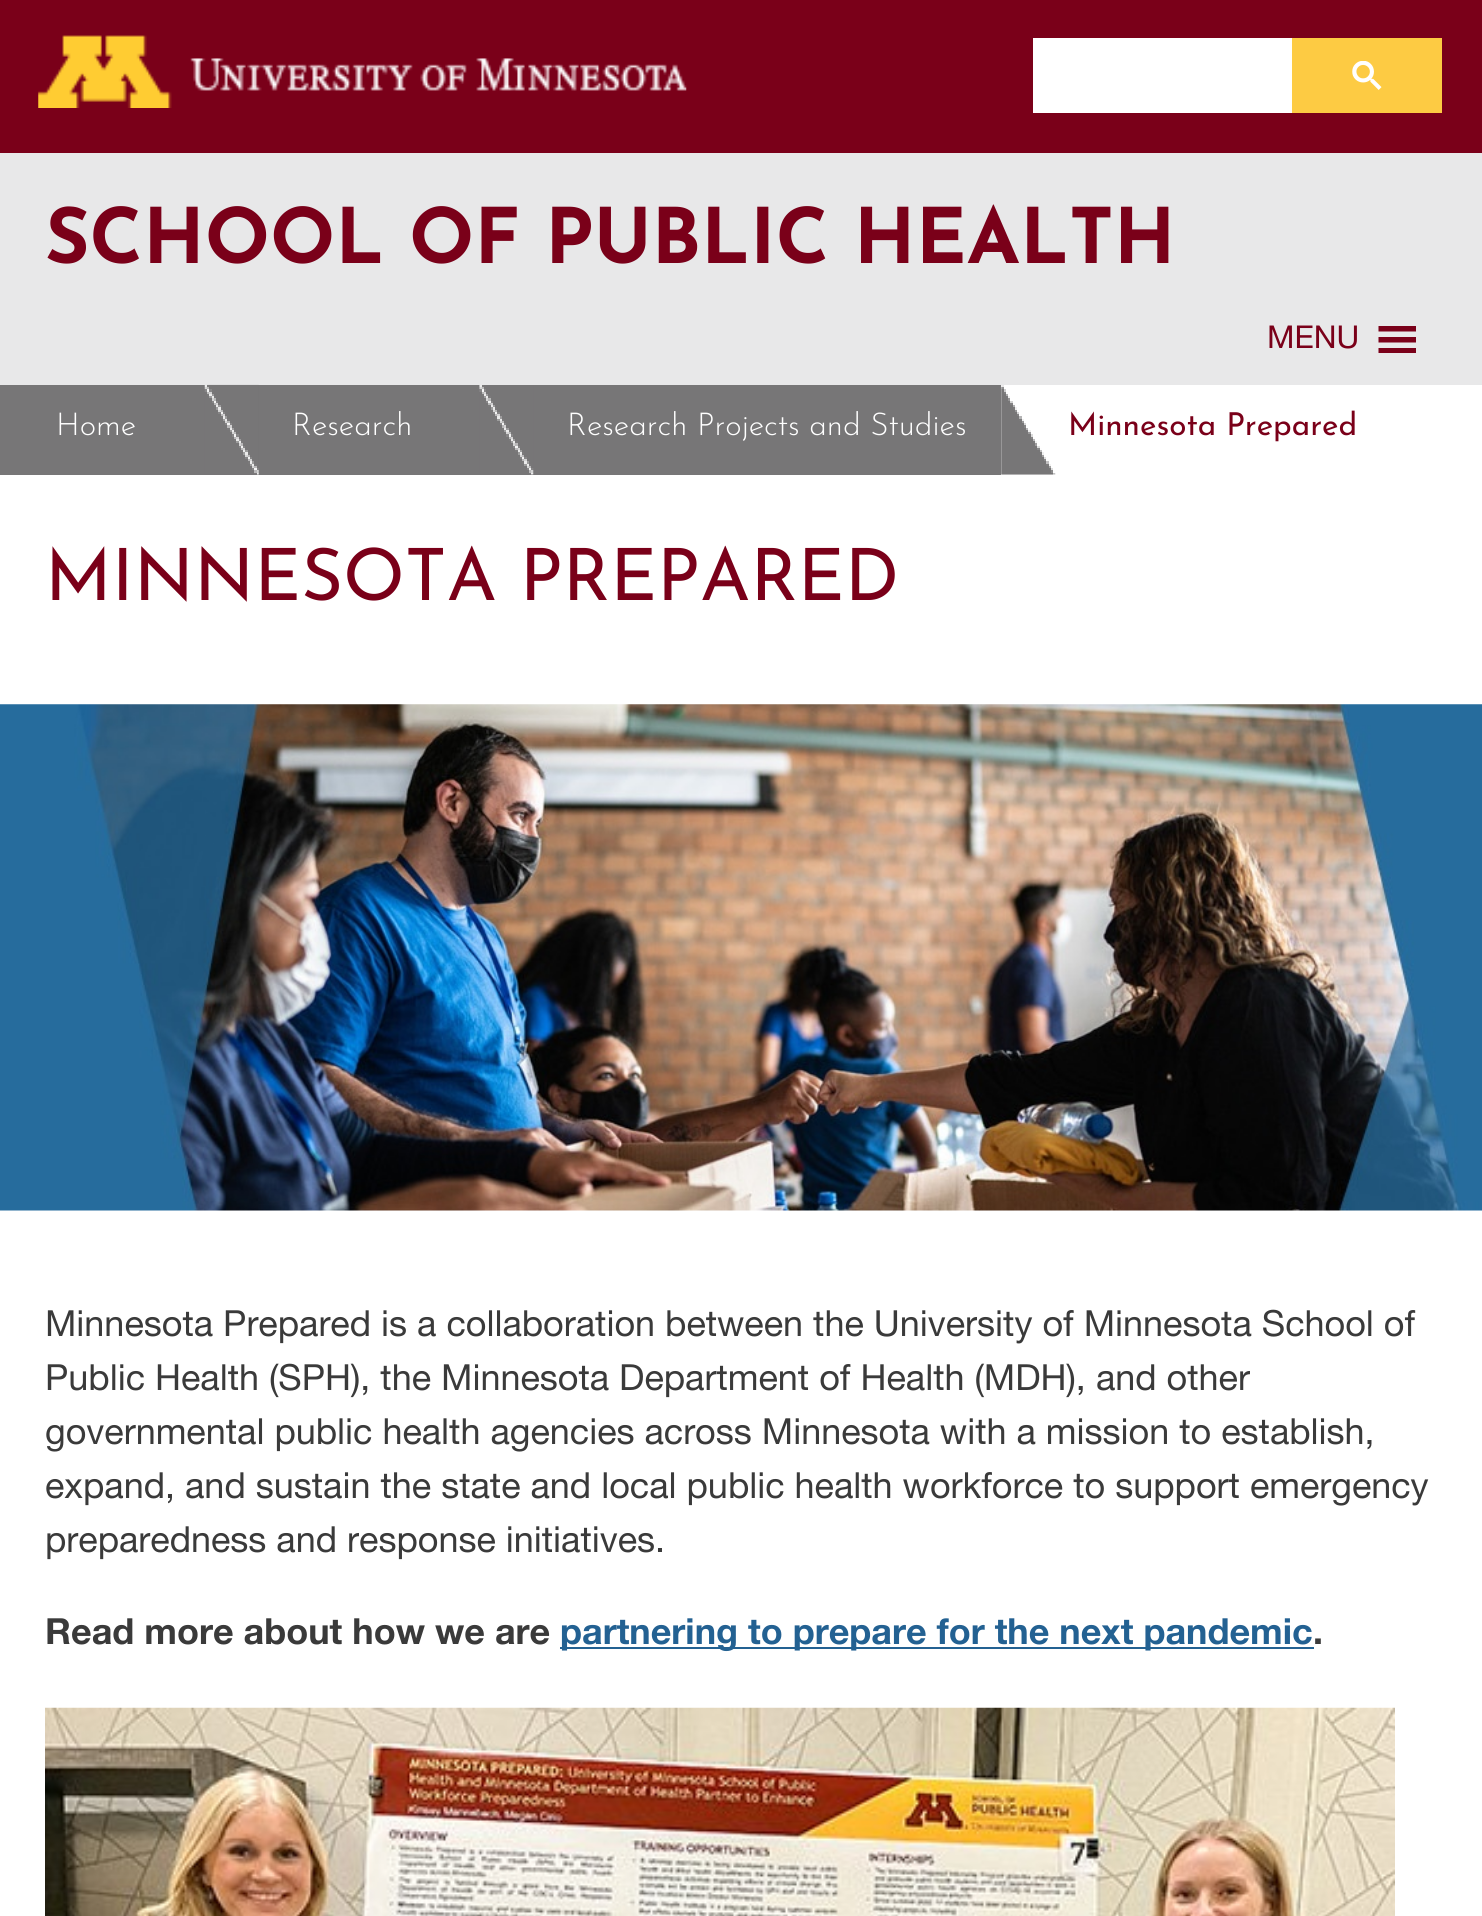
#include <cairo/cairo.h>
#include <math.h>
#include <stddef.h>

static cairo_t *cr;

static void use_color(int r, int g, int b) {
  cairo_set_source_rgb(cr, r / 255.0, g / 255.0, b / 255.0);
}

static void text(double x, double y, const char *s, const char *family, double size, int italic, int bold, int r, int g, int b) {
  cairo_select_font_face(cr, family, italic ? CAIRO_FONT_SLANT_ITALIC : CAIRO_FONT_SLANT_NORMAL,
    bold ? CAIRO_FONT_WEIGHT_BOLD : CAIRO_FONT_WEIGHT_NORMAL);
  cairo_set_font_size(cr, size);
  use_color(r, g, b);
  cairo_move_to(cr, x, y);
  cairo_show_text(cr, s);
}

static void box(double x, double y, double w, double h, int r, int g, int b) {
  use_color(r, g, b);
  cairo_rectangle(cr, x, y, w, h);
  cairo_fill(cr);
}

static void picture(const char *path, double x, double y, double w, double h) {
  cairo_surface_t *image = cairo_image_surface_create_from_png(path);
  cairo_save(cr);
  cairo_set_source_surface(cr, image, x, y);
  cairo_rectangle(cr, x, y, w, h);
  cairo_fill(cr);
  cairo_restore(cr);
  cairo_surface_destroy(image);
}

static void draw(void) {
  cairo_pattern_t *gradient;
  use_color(255, 255, 255);
  cairo_paint(cr);
  box(0, 0, 1482, 153, 122, 0, 25);
  picture("img_01.png", 38, 35, 649, 73);
  box(1033, 38, 259, 75, 255, 255, 255);
  box(1292, 38, 150, 75, 253, 203, 67);
  picture("img_02.png", 1352, 61, 30, 29);
  box(0, 153, 1482, 232, 232, 232, 233);
  use_color(122, 0, 25);
  cairo_new_path(cr);
  cairo_move_to(cr, 1378.5, 353);
  cairo_line_to(cr, 1416, 353);
  cairo_line_to(cr, 1416, 348);
  cairo_line_to(cr, 1378.5, 348);
  cairo_close_path(cr);
  cairo_move_to(cr, 1378.5, 326);
  cairo_line_to(cr, 1378.5, 331.5);
  cairo_line_to(cr, 1416, 331.5);
  cairo_line_to(cr, 1416, 326);
  cairo_close_path(cr);
  cairo_move_to(cr, 1378.5, 342.5);
  cairo_line_to(cr, 1416, 342.5);
  cairo_line_to(cr, 1416, 337);
  cairo_line_to(cr, 1378.5, 337);
  cairo_close_path(cr);
  cairo_fill(cr);
  gradient = cairo_pattern_create_linear(0, 430, 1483, 430);
  cairo_pattern_add_color_stop_rgba(gradient, 0, 0.467, 0.463, 0.467, 1);
  cairo_pattern_add_color_stop_rgba(gradient, 0.5, 0.467, 0.463, 0.467, 1);
  cairo_pattern_add_color_stop_rgba(gradient, 0.51, 1, 1, 1, 1);
  cairo_pattern_add_color_stop_rgba(gradient, 1, 1, 1, 1, 1);
  cairo_set_source(cr, gradient);
  cairo_pattern_destroy(gradient);
  cairo_rectangle(cr, 0, 385, 756, 90);
  cairo_fill(cr);
  box(742, 385, 259, 90, 119, 118, 119);
  picture("img_03.png", 204, 384, 55, 91);
  picture("img_04.png", 479, 385, 55, 90);
  picture("img_05.png", 1001, 385, 55, 90);
  picture("img_06.png", 0, 704, 1482, 507);
  box(560, 1647, 754, 2, 35, 97, 146);
  picture("img_07.png", 45, 1707, 1350, 209);
  text(45, 263, "SCHOOL OF PUBLIC HEALTH", "Josefin Sans", 76.5, 0, 1, 122, 0, 25);
  text(1267, 348, "MENU", "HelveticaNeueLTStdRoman", 31.5, 0, 0, 122, 0, 25);
  text(56, 435, "Home", "Josefin Sans Light", 31.5, 0, 0, 255, 255, 255);
  text(292, 435, "Research", "Josefin Sans Light", 31.5, 0, 0, 255, 255, 255);
  text(567, 435, "Research Projects and Studies", "Josefin Sans Light", 31.5, 0, 0, 255, 255, 255);
  text(1068, 435, "Minnesota Prepared", "Josefin Sans", 31.5, 0, 0, 122, 0, 25);
  text(45, 600, "MINNESOTA PREPARED", "Josefin Sans", 72, 0, 0, 122, 0, 25);
  text(45, 1336, "Minnesota Prepared is a collaboration between the University of Minnesota School of", "HelveticaNeueLTStdRoman", 36, 0, 0, 58, 58, 58);
  text(45, 1390, "Public Health (SPH), the Minnesota Department of Health (MDH), and other", "HelveticaNeueLTStdRoman", 36, 0, 0, 58, 58, 58);
  text(45, 1444, "governmental public health agencies across Minnesota with a mission to establish,", "HelveticaNeueLTStdRoman", 36, 0, 0, 58, 58, 58);
  text(45, 1498, "expand, and sustain the state and local public health workforce to support emergency", "HelveticaNeueLTStdRoman", 36, 0, 0, 58, 58, 58);
  text(45, 1552, "preparedness and response initiatives.", "HelveticaNeueLTStdRoman", 36, 0, 0, 58, 58, 58);
  text(45, 1644, "Read more about how we are", "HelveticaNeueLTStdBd", 36, 0, 0, 58, 58, 58);
  text(560, 1644, "partnering to prepare for the next pandemic", "HelveticaNeueLTStdBd", 36, 0, 0, 35, 97, 146);
  text(1313, 1644, ".", "HelveticaNeueLTStdBd", 36, 0, 0, 58, 58, 58);
}

int main(void) {
  cairo_surface_t *surface = cairo_image_surface_create(CAIRO_FORMAT_RGB24, 1482, 1916);
  cr = cairo_create(surface);
  cairo_font_options_t *options = cairo_font_options_create();
  cairo_font_options_set_hint_metrics(options, CAIRO_HINT_METRICS_OFF);
  cairo_font_options_set_hint_style(options, CAIRO_HINT_STYLE_NONE);
  cairo_set_font_options(cr, options);
  cairo_set_miter_limit(cr, 4);
  draw();
  cairo_surface_write_to_png(surface, "out.png");
  cairo_font_options_destroy(options);
  cairo_destroy(cr);
  cairo_surface_destroy(surface);
  return 0;
}
